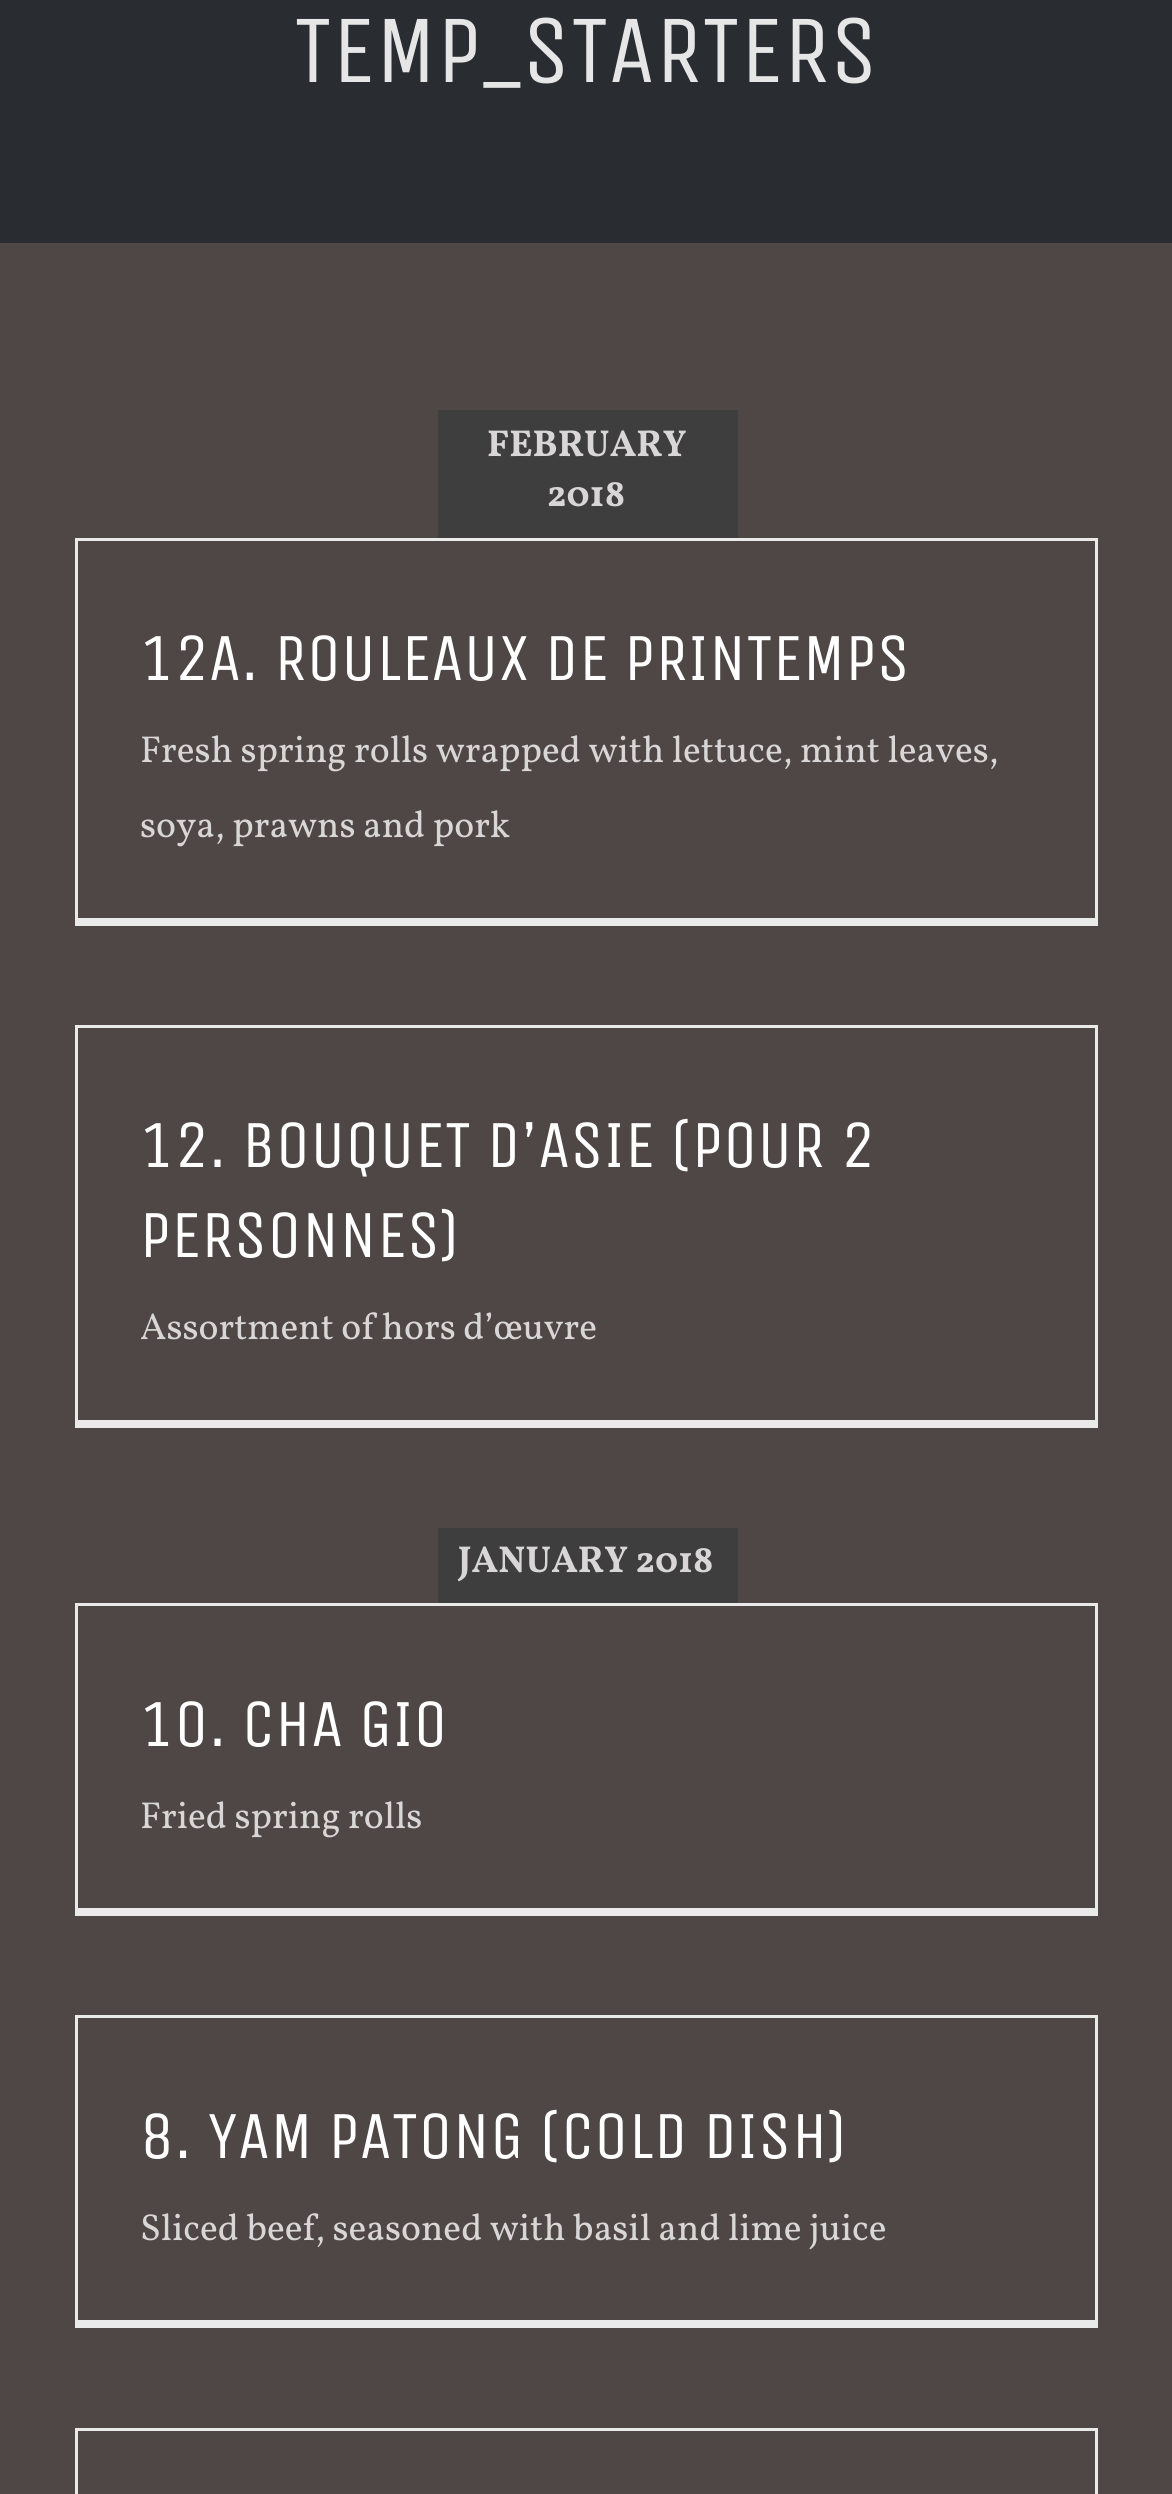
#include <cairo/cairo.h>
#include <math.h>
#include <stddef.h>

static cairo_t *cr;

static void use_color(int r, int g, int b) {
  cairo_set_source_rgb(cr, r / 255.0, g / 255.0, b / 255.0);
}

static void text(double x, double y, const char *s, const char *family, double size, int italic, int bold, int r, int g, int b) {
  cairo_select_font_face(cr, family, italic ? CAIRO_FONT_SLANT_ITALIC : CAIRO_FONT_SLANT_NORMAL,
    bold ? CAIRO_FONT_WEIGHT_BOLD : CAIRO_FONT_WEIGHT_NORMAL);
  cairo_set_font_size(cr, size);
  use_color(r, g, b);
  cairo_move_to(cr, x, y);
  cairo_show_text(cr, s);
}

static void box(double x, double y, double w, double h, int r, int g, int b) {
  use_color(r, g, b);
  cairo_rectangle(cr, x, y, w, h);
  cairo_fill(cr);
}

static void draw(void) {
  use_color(79, 70, 70);
  cairo_paint(cr);
  box(0, 0, 1172, 243, 41, 44, 48);
  box(438, 410, 300, 128, 62, 62, 62);
  box(75, 538, 1023, 3, 234, 234, 234);
  box(1095, 538, 3, 387, 234, 234, 234);
  box(75, 918, 1023, 8, 234, 234, 234);
  box(75, 538, 3, 387, 234, 234, 234);
  box(75, 1025, 1023, 3, 234, 234, 234);
  box(1095, 1025, 3, 403, 234, 234, 234);
  box(75, 1420, 1023, 8, 234, 234, 234);
  box(75, 1025, 3, 403, 234, 234, 234);
  box(438, 1528, 300, 75, 62, 62, 62);
  box(75, 1603, 1023, 3, 234, 234, 234);
  box(1095, 1603, 3, 312, 234, 234, 234);
  box(75, 1908, 1023, 8, 234, 234, 234);
  box(75, 1603, 3, 312, 234, 234, 234);
  box(75, 2015, 1023, 3, 234, 234, 234);
  box(1095, 2015, 3, 313, 234, 234, 234);
  box(75, 2320, 1023, 8, 234, 234, 234);
  box(75, 2015, 3, 313, 234, 234, 234);
  box(75, 2428, 1023, 3, 234, 234, 234);
  box(1095, 2428, 3, 66, 234, 234, 234);
  box(75, 2428, 3, 66, 234, 234, 234);
  text(294, 82, "TEMP_STARTERS", "Unica One", 97, 0, 0, 230, 230, 231);
  text(487, 456, "FEBRUARY", "Vollkorn", 37.5, 0, 1, 216, 214, 214);
  text(547, 506, "2018", "Vollkorn", 37.5, 0, 1, 216, 214, 214);
  text(140, 680, "12A. ROULEAUX DE PRINTEMPS", "Unica One", 67.4, 0, 0, 255, 255, 255);
  text(140, 762, "Fresh spring rolls wrapped with lettuce, mint leaves,", "Vollkorn", 37.5, 0, 0, 216, 214, 214);
  text(140, 837, "soya, prawns and pork", "Vollkorn", 37.5, 0, 0, 216, 214, 214);
  text(140, 1167, "12. BOUQUET D’ASIE (POUR 2", "Unica One", 67.4, 0, 0, 255, 255, 255);
  text(140, 1257, "PERSONNES)", "Unica One", 67.4, 0, 0, 255, 255, 255);
  text(140, 1339, "Assortment of hors d’œuvre", "Vollkorn", 37.5, 0, 0, 216, 214, 214);
  text(458, 1572, "JANUARY 2018", "Vollkorn", 37.5, 0, 1, 216, 214, 214);
  text(140, 1746, "10. CHA GIO", "Unica One", 67.4, 0, 0, 255, 255, 255);
  text(140, 1828, "Fried spring rolls", "Vollkorn", 37.5, 0, 0, 216, 214, 214);
  text(140, 2158, "8. YAM PATONG (COLD DISH)", "Unica One", 67.4, 0, 0, 255, 255, 255);
  text(140, 2240, "Sliced beef, seasoned with basil and lime juice", "Vollkorn", 37.5, 0, 0, 216, 214, 214);
}

int main(void) {
  cairo_surface_t *surface = cairo_image_surface_create(CAIRO_FORMAT_RGB24, 1172, 2494);
  cr = cairo_create(surface);
  cairo_font_options_t *options = cairo_font_options_create();
  cairo_font_options_set_hint_metrics(options, CAIRO_HINT_METRICS_OFF);
  cairo_font_options_set_hint_style(options, CAIRO_HINT_STYLE_NONE);
  cairo_set_font_options(cr, options);
  cairo_set_miter_limit(cr, 4);
  draw();
  cairo_surface_write_to_png(surface, "out.png");
  cairo_font_options_destroy(options);
  cairo_destroy(cr);
  cairo_surface_destroy(surface);
  return 0;
}
